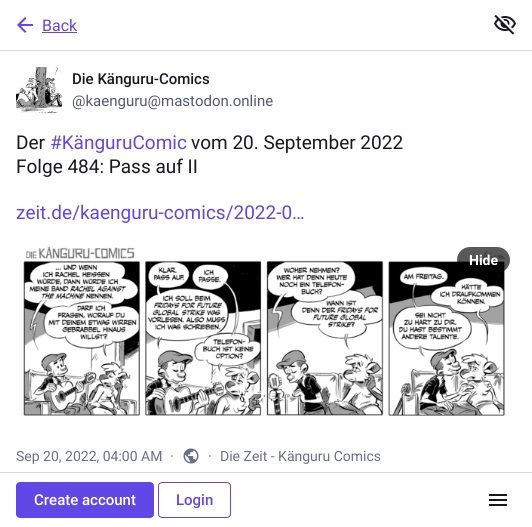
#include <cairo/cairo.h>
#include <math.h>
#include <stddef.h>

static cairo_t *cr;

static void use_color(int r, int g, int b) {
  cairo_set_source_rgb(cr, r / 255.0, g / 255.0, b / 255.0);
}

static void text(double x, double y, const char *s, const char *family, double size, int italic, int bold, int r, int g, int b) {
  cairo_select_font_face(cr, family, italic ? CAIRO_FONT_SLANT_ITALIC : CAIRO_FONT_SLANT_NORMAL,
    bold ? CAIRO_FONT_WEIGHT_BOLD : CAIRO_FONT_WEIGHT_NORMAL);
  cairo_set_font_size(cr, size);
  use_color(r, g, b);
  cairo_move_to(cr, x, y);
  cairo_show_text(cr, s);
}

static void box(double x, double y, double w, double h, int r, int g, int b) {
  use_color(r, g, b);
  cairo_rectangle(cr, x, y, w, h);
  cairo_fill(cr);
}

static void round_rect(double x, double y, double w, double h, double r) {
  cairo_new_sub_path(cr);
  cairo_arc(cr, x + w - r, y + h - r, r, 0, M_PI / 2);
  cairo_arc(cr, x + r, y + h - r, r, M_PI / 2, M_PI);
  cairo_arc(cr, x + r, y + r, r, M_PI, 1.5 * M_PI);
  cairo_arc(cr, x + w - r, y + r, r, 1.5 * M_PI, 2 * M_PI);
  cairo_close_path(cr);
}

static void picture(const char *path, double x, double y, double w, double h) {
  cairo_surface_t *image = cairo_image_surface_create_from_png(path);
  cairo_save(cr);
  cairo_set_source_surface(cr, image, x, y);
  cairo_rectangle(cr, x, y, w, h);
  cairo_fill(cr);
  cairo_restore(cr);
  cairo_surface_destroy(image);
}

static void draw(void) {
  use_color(255, 255, 255);
  cairo_paint(cr);
  box(0, 50, 532, 1, 216, 216, 218);
  picture("img_01.png", 17, 17, 16, 16);
  box(42, 32, 35, 1, 97, 71, 230);
  picture("img_02.png", 494, 14, 22, 21);
  use_color(236, 237, 241);
  round_rect(16, 67, 46, 46, 8);
  cairo_fill(cr);
  picture("img_03.png", 16, 67, 46, 46);
  picture("img_04.png", 23, 246, 482, 170);
  cairo_set_source_rgba(cr, 0, 0, 0, 0.65);
  round_rect(457, 247, 53, 26, 13);
  cairo_fill(cr);
  picture("img_05.png", 183, 448, 16, 16);
  box(0, 472, 532, 1, 216, 216, 218);
  use_color(97, 71, 230);
  round_rect(16, 482, 138, 36, 4);
  cairo_fill(cr);
  round_rect(158.5, 482.5, 72, 35, 3.5);
  cairo_set_line_width(cr, 1);
  cairo_stroke(cr);
  picture("img_06.png", 489, 494, 18, 12);
  text(42, 31, "Back", "Roboto", 16, 0, 0, 97, 71, 230);
  text(72, 84, "Die Känguru-Comics", "Roboto Medium", 15, 0, 0, 24, 24, 33);
  text(72, 106, "@kaenguru@mastodon.online", "Roboto", 15, 0, 0, 84, 87, 120);
  text(16, 149, "Der", "Roboto", 19, 0, 0, 24, 24, 33);
  text(50, 149, "#KänguruComic", "Roboto", 19, 0, 0, 97, 71, 230);
  text(191, 149, "vom 20. September 2022", "Roboto", 19, 0, 0, 24, 24, 33);
  text(16, 173, "Folge 484: Pass auf II", "Roboto", 19, 0, 0, 24, 24, 33);
  text(16, 219, "zeit.de/kaenguru-comics/2022-0…", "Roboto", 19, 0, 0, 97, 71, 230);
  text(469, 265, "Hide", "Roboto", 14, 0, 1, 255, 255, 255);
  text(16, 461, "Sep 20, 2022, 04:00 AM", "Roboto", 14, 0, 0, 105, 109, 145);
  text(170, 461, "·", "Roboto", 14, 0, 0, 105, 109, 145);
  text(208, 461, "·", "Roboto", 14, 0, 0, 105, 109, 145);
  text(220, 461, "Die Zeit - Känguru Comics", "Roboto", 14, 0, 0, 105, 109, 145);
  text(34, 505, "Create account", "Roboto Medium", 15, 0, 0, 255, 255, 255);
  text(176, 505, "Login", "Roboto Medium", 15, 0, 0, 97, 71, 230);
}

int main(void) {
  cairo_surface_t *surface = cairo_image_surface_create(CAIRO_FORMAT_RGB24, 532, 527);
  cr = cairo_create(surface);
  cairo_font_options_t *options = cairo_font_options_create();
  cairo_font_options_set_hint_metrics(options, CAIRO_HINT_METRICS_OFF);
  cairo_font_options_set_hint_style(options, CAIRO_HINT_STYLE_NONE);
  cairo_set_font_options(cr, options);
  cairo_set_miter_limit(cr, 4);
  draw();
  cairo_surface_write_to_png(surface, "out.png");
  cairo_font_options_destroy(options);
  cairo_destroy(cr);
  cairo_surface_destroy(surface);
  return 0;
}
